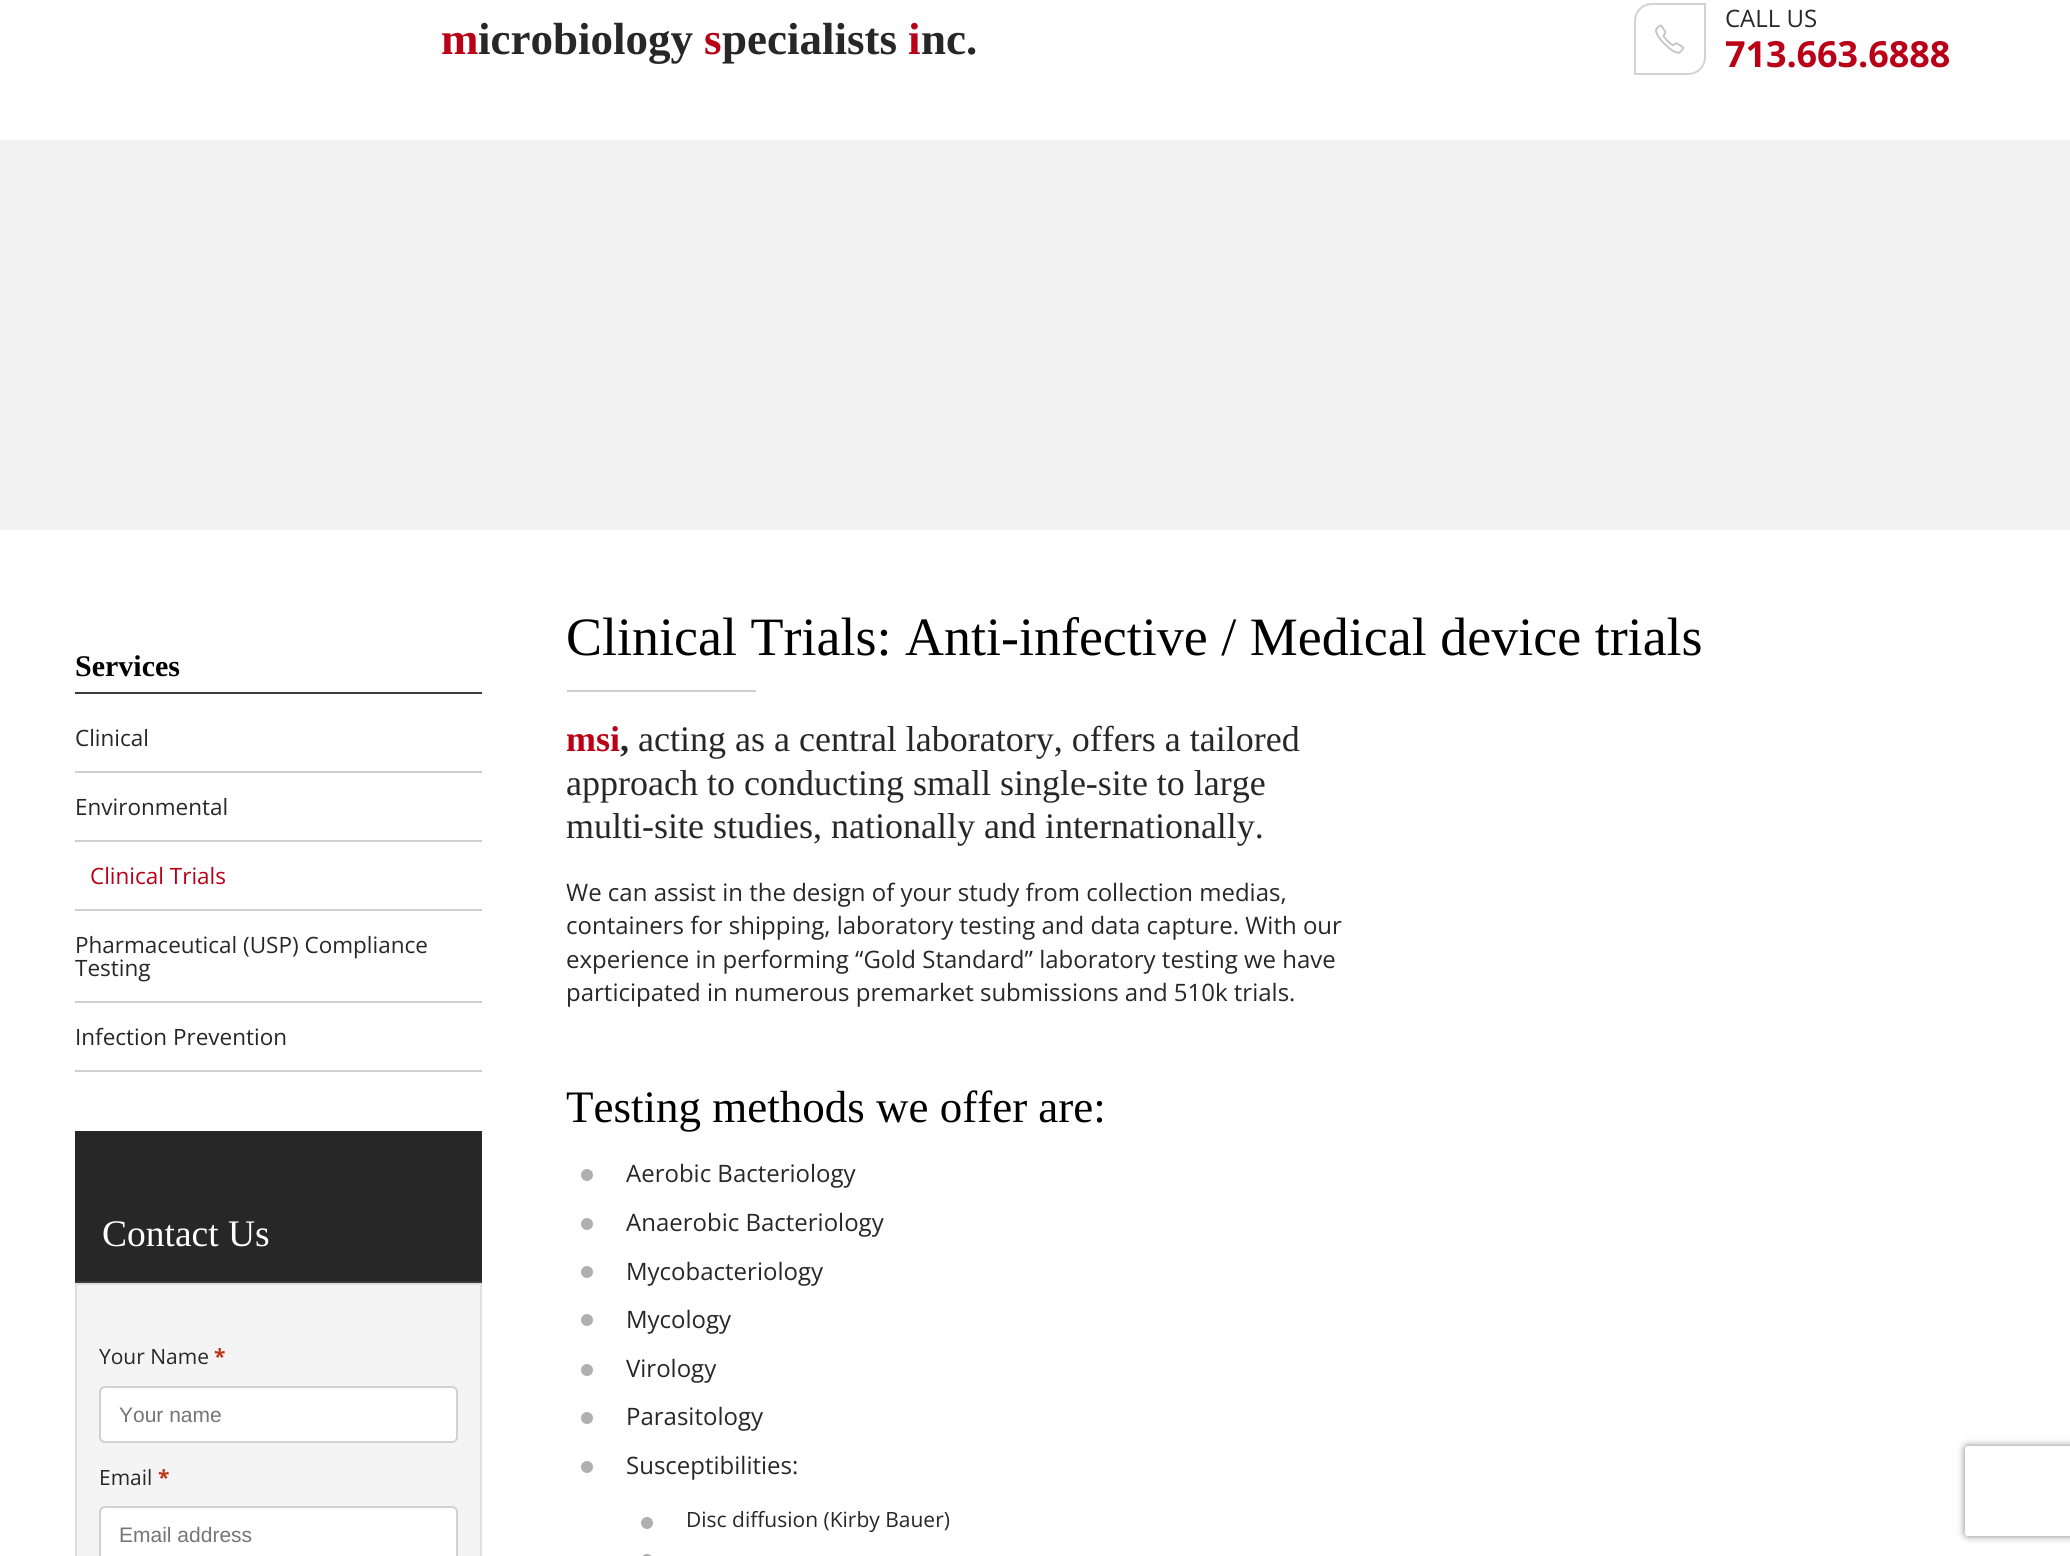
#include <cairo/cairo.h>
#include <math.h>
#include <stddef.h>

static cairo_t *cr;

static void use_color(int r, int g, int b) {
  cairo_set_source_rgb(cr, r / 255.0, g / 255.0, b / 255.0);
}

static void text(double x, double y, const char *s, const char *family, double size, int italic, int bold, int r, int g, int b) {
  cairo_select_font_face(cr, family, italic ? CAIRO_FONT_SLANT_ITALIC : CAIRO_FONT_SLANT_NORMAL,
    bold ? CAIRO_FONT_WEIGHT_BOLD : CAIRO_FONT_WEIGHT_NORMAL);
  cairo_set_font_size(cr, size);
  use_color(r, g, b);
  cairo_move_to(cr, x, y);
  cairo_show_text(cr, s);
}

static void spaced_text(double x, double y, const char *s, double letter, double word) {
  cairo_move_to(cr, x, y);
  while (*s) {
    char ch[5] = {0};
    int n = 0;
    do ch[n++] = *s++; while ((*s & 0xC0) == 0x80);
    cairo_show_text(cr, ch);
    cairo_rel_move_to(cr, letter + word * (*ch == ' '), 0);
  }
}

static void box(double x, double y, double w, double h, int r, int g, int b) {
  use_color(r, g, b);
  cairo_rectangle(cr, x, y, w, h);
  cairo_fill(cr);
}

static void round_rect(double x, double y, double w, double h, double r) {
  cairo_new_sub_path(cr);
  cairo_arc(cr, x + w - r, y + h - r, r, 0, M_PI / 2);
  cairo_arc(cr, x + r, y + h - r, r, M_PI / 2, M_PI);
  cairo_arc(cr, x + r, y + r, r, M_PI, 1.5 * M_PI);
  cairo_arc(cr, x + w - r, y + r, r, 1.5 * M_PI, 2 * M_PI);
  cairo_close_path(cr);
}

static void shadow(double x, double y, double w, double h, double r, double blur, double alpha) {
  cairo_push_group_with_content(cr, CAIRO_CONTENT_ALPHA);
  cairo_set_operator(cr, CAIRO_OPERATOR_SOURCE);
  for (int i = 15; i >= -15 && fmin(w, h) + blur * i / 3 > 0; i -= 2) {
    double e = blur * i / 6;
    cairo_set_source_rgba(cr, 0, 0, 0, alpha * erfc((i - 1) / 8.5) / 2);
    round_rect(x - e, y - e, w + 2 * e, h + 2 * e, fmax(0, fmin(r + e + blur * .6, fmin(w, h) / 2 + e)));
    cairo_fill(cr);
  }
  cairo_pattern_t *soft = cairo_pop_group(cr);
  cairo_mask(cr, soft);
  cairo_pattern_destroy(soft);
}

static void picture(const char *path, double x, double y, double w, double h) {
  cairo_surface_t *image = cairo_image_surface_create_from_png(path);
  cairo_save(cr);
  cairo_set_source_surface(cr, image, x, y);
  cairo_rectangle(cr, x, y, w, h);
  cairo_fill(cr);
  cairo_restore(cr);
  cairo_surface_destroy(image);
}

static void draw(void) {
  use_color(255, 255, 255);
  cairo_paint(cr);
  cairo_new_path(cr);
  cairo_move_to(cr, 1652, 4);
  cairo_line_to(cr, 1705, 4);
  cairo_line_to(cr, 1705, 57);
  cairo_curve_to(cr, 1705, 66.5, 1697.5, 74, 1688, 74);
  cairo_line_to(cr, 1635, 74);
  cairo_line_to(cr, 1635, 21);
  cairo_curve_to(cr, 1635, 11.5, 1642.5, 4, 1652, 4);
  cairo_close_path(cr);
  use_color(211, 211, 211);
  cairo_stroke(cr);
  picture("img_01.png", 1655, 24, 29, 30);
  box(0, 140, 2070, 390, 242, 242, 242);
  box(75, 692, 407, 2, 59, 59, 59);
  box(75, 771, 407, 2, 206, 206, 206);
  box(75, 840, 407, 2, 206, 206, 206);
  box(75, 909, 407, 2, 206, 206, 206);
  box(75, 1001, 407, 2, 206, 206, 206);
  box(75, 1070, 407, 2, 206, 206, 206);
  box(75, 1131, 407, 150, 39, 39, 39);
  box(75, 1281, 407, 2, 59, 59, 59);
  use_color(244, 244, 244);
  cairo_rectangle(cr, 76, 1284, 405, 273);
  cairo_fill_preserve(cr);
  use_color(222, 222, 222);
  cairo_stroke(cr);
  use_color(255, 255, 255);
  round_rect(100, 1387, 357, 55, 5);
  cairo_fill_preserve(cr);
  use_color(209, 209, 209);
  cairo_stroke(cr);
  use_color(255, 255, 255);
  round_rect(100, 1507, 357, 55, 5);
  cairo_fill_preserve(cr);
  use_color(209, 209, 209);
  cairo_stroke(cr);
  box(567, 690, 189, 2, 206, 206, 206);
  use_color(176, 176, 176);
  cairo_arc(cr, 587, 1175, 6, 0, 2 * M_PI);
  cairo_fill(cr);
  cairo_arc(cr, 587, 1224, 6, 0, 2 * M_PI);
  cairo_fill(cr);
  cairo_arc(cr, 587, 1272, 6, 0, 2 * M_PI);
  cairo_fill(cr);
  cairo_arc(cr, 587, 1320, 6, 0, 2 * M_PI);
  cairo_fill(cr);
  cairo_arc(cr, 587, 1370, 6, 0, 2 * M_PI);
  cairo_fill(cr);
  cairo_arc(cr, 587, 1418, 6, 0, 2 * M_PI);
  cairo_fill(cr);
  cairo_arc(cr, 587, 1467, 6, 0, 2 * M_PI);
  cairo_fill(cr);
  cairo_arc(cr, 647, 1523, 6, 0, 2 * M_PI);
  cairo_fill(cr);
  round_rect(641, 1554, 12, 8, 6);
  cairo_fill(cr);
  cairo_save(cr);
  cairo_set_fill_rule(cr, CAIRO_FILL_RULE_EVEN_ODD);
  cairo_new_path(cr);
  cairo_move_to(cr, 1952, 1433);
  cairo_line_to(cr, 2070, 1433);
  cairo_line_to(cr, 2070, 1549);
  cairo_line_to(cr, 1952, 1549);
  cairo_close_path(cr);
  cairo_move_to(cr, 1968, 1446);
  cairo_line_to(cr, 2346, 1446);
  cairo_curve_to(cr, 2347.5, 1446, 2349, 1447.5, 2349, 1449);
  cairo_line_to(cr, 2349, 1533);
  cairo_curve_to(cr, 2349, 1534.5, 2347.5, 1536, 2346, 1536);
  cairo_line_to(cr, 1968, 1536);
  cairo_curve_to(cr, 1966.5, 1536, 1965, 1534.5, 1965, 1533);
  cairo_line_to(cr, 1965, 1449);
  cairo_curve_to(cr, 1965, 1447.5, 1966.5, 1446, 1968, 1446);
  cairo_close_path(cr);
  cairo_clip(cr);
  use_color(128, 128, 128);
  shadow(1965, 1446, 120, 90, 3, 4, 1);
  cairo_restore(cr);
  text(441, 54, "m", "Liberation Serif", 45, 0, 1, 186, 0, 23);
  text(478, 54, "icrobiology", "Liberation Serif", 45, 0, 1, 39, 39, 39);
  text(704, 54, "s", "Liberation Serif", 45, 0, 1, 186, 0, 23);
  text(722, 54, "pecialists", "Liberation Serif", 45, 0, 1, 39, 39, 39);
  text(908, 54, "i", "Liberation Serif", 45, 0, 1, 186, 0, 23);
  text(921, 54, "nc.", "Liberation Serif", 45, 0, 1, 39, 39, 39);
  text(1725, 27, "CALL US", "Open Sans", 24, 0, 0, 39, 39, 39);
  cairo_select_font_face(cr, "Open Sans", CAIRO_FONT_SLANT_NORMAL, CAIRO_FONT_WEIGHT_BOLD);
  cairo_set_font_size(cr, 36);
  use_color(186, 0, 23);
  spaced_text(1725, 67, "713.663.6888", -0.1, 0);
  text(75, 676, "Services", "Liberation Serif", 30, 0, 1, 0, 0, 0);
  text(75, 746, "Clinical", "Open Sans", 22.5, 0, 0, 39, 39, 39);
  text(75, 815, "Environmental", "Open Sans", 22.5, 0, 0, 39, 39, 39);
  text(90, 884, "Clinical Trials", "Open Sans", 22.5, 0, 0, 186, 0, 23);
  text(75, 953, "Pharmaceutical (USP) Compliance", "Open Sans", 22.5, 0, 0, 39, 39, 39);
  text(75, 976, "Testing", "Open Sans", 22.5, 0, 0, 39, 39, 39);
  text(75, 1045, "Infection Prevention", "Open Sans", 22.5, 0, 0, 39, 39, 39);
  text(102, 1246, "Contact Us", "Liberation Serif", 37.5, 0, 0, 255, 255, 255);
  text(99, 1364, "Your Name", "Open Sans", 21, 0, 0, 39, 39, 39);
  text(214, 1364, "*", "Open Sans", 21, 0, 1, 189, 53, 25);
  text(119, 1422, "Your name", "Liberation Sans", 21, 0, 0, 117, 117, 117);
  text(99, 1485, "Email", "Open Sans", 21, 0, 0, 39, 39, 39);
  text(158, 1485, "*", "Open Sans", 21, 0, 1, 189, 53, 25);
  text(119, 1542, "Email address", "Liberation Sans", 21, 0, 0, 117, 117, 117);
  text(566, 655, "Clinical Trials: Anti-infective / Medical device trials", "Liberation Serif", 54, 0, 0, 0, 0, 0);
  text(566, 751, "msi", "Liberation Serif", 36, 0, 1, 186, 0, 23);
  text(620, 751, ",", "Liberation Serif", 36, 0, 1, 39, 39, 39);
  text(638, 751, "acting as a central laboratory, offers a tailored", "Liberation Serif", 36, 0, 0, 39, 39, 39);
  text(566, 795, "approach to conducting small single-site to large", "Liberation Serif", 36, 0, 0, 39, 39, 39);
  text(566, 838, "multi-site studies, nationally and internationally.", "Liberation Serif", 36, 0, 0, 39, 39, 39);
  text(566, 901, "We can assist in the design of your study from collection medias,", "Open Sans", 24, 0, 0, 39, 39, 39);
  text(566, 934, "containers for shipping, laboratory testing and data capture. With our", "Open Sans", 24, 0, 0, 39, 39, 39);
  text(566, 968, "experience in performing “Gold Standard” laboratory testing we have", "Open Sans", 24, 0, 0, 39, 39, 39);
  text(566, 1001, "participated in numerous premarket submissions and 510k trials.", "Open Sans", 24, 0, 0, 39, 39, 39);
  text(566, 1122, "Testing methods we offer are:", "Liberation Serif", 45, 0, 0, 0, 0, 0);
  text(626, 1182, "Aerobic Bacteriology", "Open Sans", 24, 0, 0, 39, 39, 39);
  text(626, 1231, "Anaerobic Bacteriology", "Open Sans", 24, 0, 0, 39, 39, 39);
  text(626, 1280, "Mycobacteriology", "Open Sans", 24, 0, 0, 39, 39, 39);
  text(626, 1328, "Mycology", "Open Sans", 24, 0, 0, 39, 39, 39);
  text(626, 1377, "Virology", "Open Sans", 24, 0, 0, 39, 39, 39);
  text(626, 1425, "Parasitology", "Open Sans", 24, 0, 0, 39, 39, 39);
  text(626, 1474, "Susceptibilities:", "Open Sans", 24, 0, 0, 39, 39, 39);
  text(686, 1527, "Disc diffusion (Kirby Bauer)", "Open Sans", 21, 0, 0, 39, 39, 39);
}

int main(void) {
  cairo_surface_t *surface = cairo_image_surface_create(CAIRO_FORMAT_RGB24, 2070, 1556);
  cr = cairo_create(surface);
  cairo_font_options_t *options = cairo_font_options_create();
  cairo_font_options_set_hint_metrics(options, CAIRO_HINT_METRICS_OFF);
  cairo_font_options_set_hint_style(options, CAIRO_HINT_STYLE_NONE);
  cairo_set_font_options(cr, options);
  cairo_set_miter_limit(cr, 4);
  draw();
  cairo_surface_write_to_png(surface, "out.png");
  cairo_font_options_destroy(options);
  cairo_destroy(cr);
  cairo_surface_destroy(surface);
  return 0;
}
